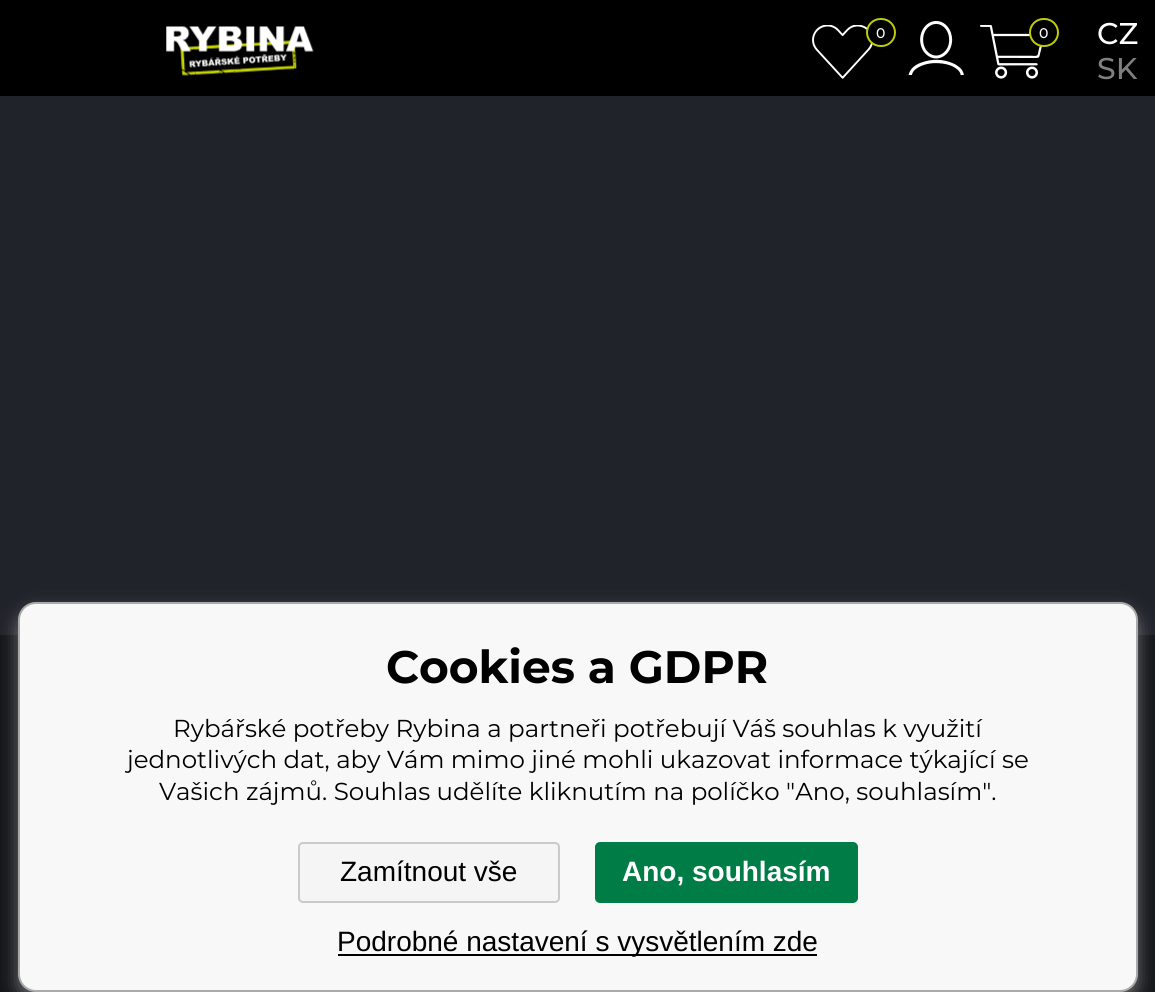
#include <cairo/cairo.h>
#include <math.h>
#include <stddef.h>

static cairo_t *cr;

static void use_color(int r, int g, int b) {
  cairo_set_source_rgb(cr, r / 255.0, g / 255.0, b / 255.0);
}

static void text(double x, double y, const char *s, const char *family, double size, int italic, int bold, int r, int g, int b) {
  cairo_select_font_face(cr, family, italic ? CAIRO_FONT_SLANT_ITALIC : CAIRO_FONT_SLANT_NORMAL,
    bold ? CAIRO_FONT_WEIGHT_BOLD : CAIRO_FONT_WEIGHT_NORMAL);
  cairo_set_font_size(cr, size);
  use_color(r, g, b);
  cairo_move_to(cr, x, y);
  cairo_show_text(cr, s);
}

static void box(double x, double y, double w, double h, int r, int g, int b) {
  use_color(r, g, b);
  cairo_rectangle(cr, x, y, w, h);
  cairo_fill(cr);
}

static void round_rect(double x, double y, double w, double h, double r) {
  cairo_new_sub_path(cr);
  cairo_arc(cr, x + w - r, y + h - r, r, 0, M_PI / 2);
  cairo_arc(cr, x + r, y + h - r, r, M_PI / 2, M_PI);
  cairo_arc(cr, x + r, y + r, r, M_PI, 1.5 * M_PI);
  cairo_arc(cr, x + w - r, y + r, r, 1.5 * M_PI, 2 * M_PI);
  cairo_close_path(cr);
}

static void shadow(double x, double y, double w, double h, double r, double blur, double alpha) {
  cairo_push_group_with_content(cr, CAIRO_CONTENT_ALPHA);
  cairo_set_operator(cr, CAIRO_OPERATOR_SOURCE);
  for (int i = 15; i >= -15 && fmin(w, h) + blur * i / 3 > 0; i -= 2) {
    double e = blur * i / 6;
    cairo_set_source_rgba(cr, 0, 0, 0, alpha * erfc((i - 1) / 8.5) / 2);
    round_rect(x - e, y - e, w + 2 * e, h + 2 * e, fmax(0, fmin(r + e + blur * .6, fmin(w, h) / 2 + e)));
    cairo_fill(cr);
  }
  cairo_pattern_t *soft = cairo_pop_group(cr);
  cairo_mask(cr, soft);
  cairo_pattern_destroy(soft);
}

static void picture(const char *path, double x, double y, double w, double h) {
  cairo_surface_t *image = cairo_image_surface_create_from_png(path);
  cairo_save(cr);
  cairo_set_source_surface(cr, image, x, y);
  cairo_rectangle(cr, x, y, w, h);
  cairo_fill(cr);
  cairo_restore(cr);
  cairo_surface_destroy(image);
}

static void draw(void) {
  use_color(33, 35, 42);
  cairo_paint(cr);
  box(0, 0, 1155, 96, 0, 0, 0);
  picture("img_01.png", 166, 26, 148, 50);
  picture("img_02.png", 812, 25, 61, 54);
  round_rect(867, 19, 28, 27, 13.5);
  cairo_fill_preserve(cr);
  use_color(191, 203, 5);
  cairo_stroke(cr);
  picture("img_03.png", 908, 21, 56, 54);
  picture("img_04.png", 980, 25, 62, 54);
  use_color(0, 0, 0);
  round_rect(1030, 19, 28, 27, 13.5);
  cairo_fill_preserve(cr);
  use_color(191, 203, 5);
  cairo_stroke(cr);
  box(0, 635, 1155, 357, 19, 21, 25);
  use_color(200, 200, 200);
  shadow(18, 611, 1120, 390, 18, 9, 0.5);
  use_color(248, 248, 248);
  round_rect(19, 603, 1118, 388, 17);
  cairo_fill_preserve(cr);
  use_color(170, 170, 170);
  cairo_stroke(cr);
  use_color(245, 245, 245);
  round_rect(299, 843, 260, 59, 4);
  cairo_fill_preserve(cr);
  use_color(202, 202, 202);
  cairo_stroke(cr);
  use_color(0, 124, 71);
  round_rect(596, 843, 261, 59, 4);
  cairo_fill_preserve(cr);
  cairo_stroke(cr);
  box(338, 954, 479, 2, 0, 0, 0);
  text(876, 38, "0", "Montserrat Medium", 14, 0, 0, 255, 255, 255);
  text(1039, 38, "0", "Montserrat Medium", 14, 0, 0, 255, 255, 255);
  text(1097, 44, "CZ", "Montserrat Medium", 30, 0, 0, 255, 255, 255);
  text(1097, 79, "SK", "Montserrat Medium", 30, 0, 0, 128, 128, 128);
  text(386, 683, "Cookies a GDPR", "Montserrat", 45.5, 0, 1, 0, 0, 0);
  text(173, 737, "Rybářské potřeby Rybina a partneři potřebují Váš souhlas k využití", "Montserrat", 24.5, 0, 0, 0, 0, 0);
  text(127, 768, "jednotlivých dat, aby Vám mimo jiné mohli ukazovat informace týkající se", "Montserrat", 24.5, 0, 0, 0, 0, 0);
  text(159, 800, "Vašich zájmů. Souhlas udělíte kliknutím na políčko \"Ano, souhlasím\".", "Montserrat", 24.5, 0, 0, 0, 0, 0);
  text(340, 881, "Zamítnout vše", "Liberation Sans", 28, 0, 0, 0, 0, 0);
  text(622, 881, "Ano, souhlasím", "Liberation Sans", 28, 0, 1, 255, 255, 255);
  text(337, 951, "Podrobné nastavení s vysvětlením zde", "Liberation Sans", 28, 0, 0, 0, 0, 0);
}

int main(void) {
  cairo_surface_t *surface = cairo_image_surface_create(CAIRO_FORMAT_RGB24, 1155, 992);
  cr = cairo_create(surface);
  cairo_font_options_t *options = cairo_font_options_create();
  cairo_font_options_set_hint_metrics(options, CAIRO_HINT_METRICS_OFF);
  cairo_font_options_set_hint_style(options, CAIRO_HINT_STYLE_NONE);
  cairo_set_font_options(cr, options);
  cairo_set_miter_limit(cr, 4);
  draw();
  cairo_surface_write_to_png(surface, "out.png");
  cairo_font_options_destroy(options);
  cairo_destroy(cr);
  cairo_surface_destroy(surface);
  return 0;
}
